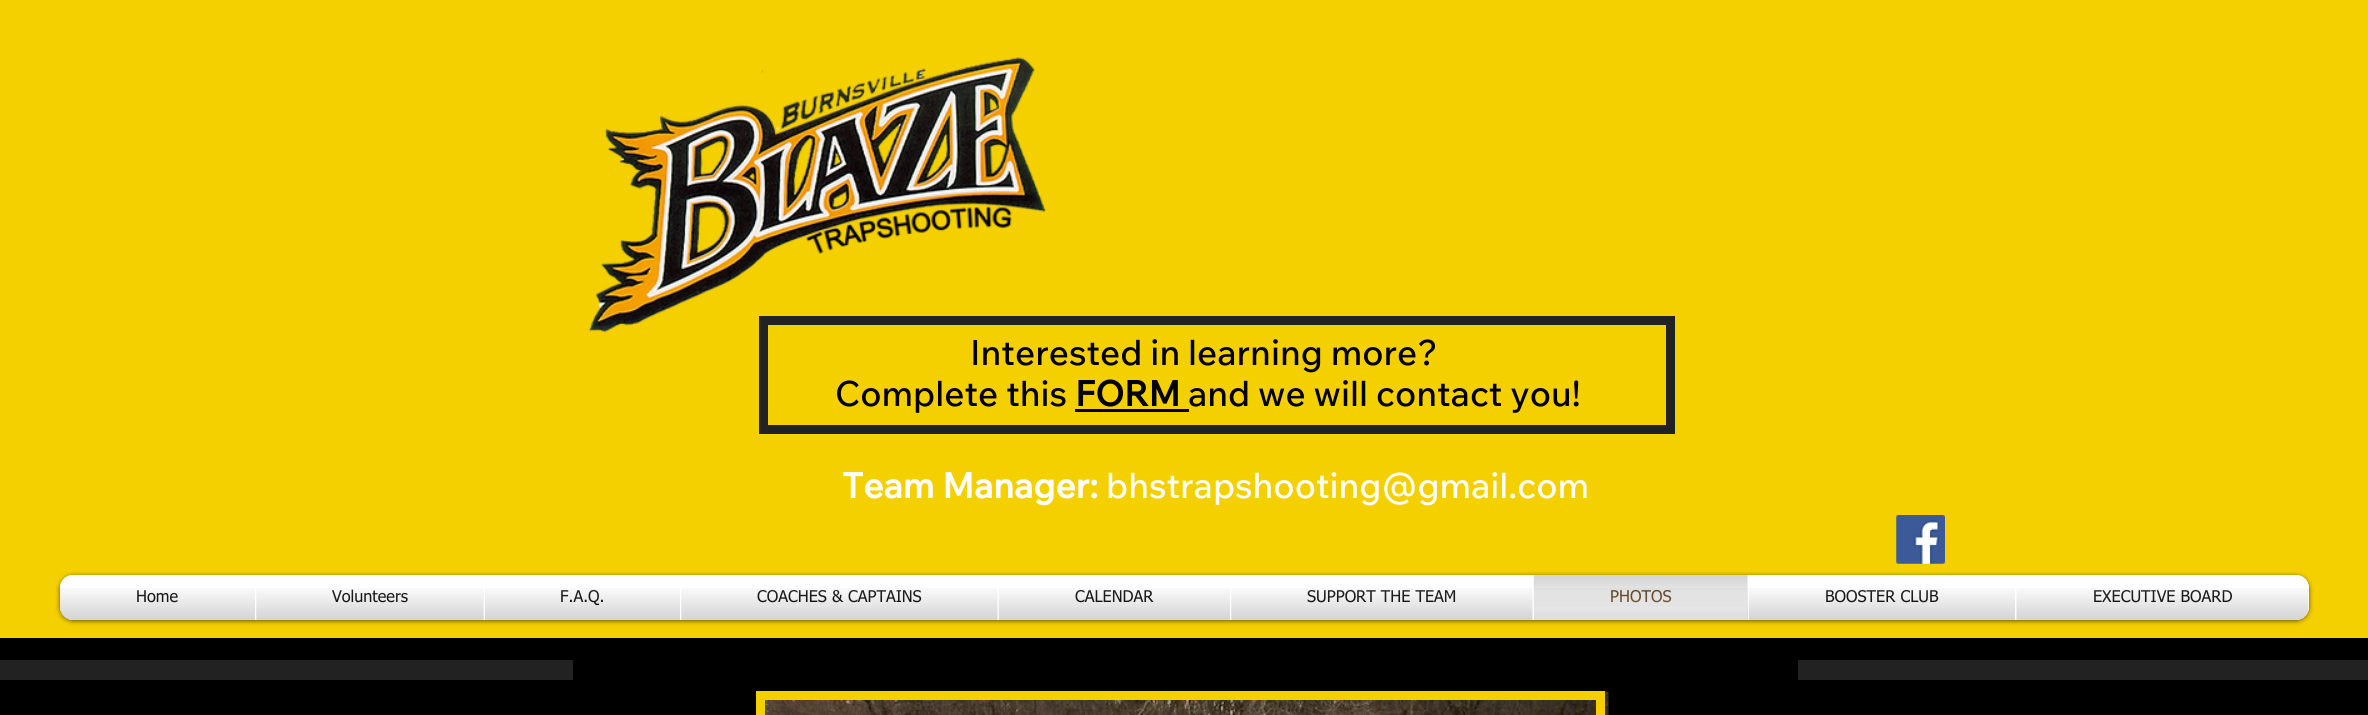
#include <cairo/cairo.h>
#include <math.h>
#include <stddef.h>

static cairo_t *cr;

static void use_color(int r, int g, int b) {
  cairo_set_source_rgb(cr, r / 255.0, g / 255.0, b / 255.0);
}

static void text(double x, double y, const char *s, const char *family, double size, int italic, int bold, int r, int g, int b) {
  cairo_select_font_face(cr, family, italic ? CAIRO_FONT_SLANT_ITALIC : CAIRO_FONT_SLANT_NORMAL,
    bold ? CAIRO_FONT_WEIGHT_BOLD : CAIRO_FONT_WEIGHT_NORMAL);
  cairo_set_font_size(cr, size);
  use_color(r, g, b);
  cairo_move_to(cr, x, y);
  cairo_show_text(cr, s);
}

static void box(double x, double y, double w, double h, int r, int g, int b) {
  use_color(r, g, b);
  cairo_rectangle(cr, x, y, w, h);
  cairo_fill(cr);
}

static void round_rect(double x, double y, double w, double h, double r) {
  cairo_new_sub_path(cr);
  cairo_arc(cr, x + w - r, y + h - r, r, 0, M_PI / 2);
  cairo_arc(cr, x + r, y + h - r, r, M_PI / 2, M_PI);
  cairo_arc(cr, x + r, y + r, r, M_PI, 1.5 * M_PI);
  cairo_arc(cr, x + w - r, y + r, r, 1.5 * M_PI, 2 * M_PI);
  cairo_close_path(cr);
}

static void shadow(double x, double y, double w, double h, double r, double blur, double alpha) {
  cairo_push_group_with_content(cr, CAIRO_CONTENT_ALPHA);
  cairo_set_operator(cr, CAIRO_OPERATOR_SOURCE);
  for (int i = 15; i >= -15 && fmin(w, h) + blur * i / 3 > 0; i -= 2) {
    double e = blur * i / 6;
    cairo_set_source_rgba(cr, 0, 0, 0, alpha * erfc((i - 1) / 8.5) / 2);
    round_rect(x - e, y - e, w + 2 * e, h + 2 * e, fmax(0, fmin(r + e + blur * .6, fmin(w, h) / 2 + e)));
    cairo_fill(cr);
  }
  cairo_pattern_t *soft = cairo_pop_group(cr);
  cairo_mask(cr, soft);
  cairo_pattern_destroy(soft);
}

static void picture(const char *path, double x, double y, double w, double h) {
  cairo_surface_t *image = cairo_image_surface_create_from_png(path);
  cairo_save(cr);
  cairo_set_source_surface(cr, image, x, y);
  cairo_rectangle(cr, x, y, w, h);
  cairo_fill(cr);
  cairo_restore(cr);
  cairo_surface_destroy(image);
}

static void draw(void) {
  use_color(0, 0, 0);
  cairo_paint(cr);
  box(0, 0, 2368, 638, 245, 208, 0);
  picture("img_01.png", 588, 57, 458, 276);
  cairo_rectangle(cr, 763.5, 320.5, 907, 109);
  use_color(34, 34, 34);
  cairo_set_line_width(cr, 9);
  cairo_stroke(cr);
  box(1075, 409, 114, 3, 0, 0, 0);
  picture("img_02.png", 1896, 515, 49, 49);
  use_color(0, 0, 0);
  shadow(60, 576, 2249, 45, 13, 2.5, 0.6);
  use_color(255, 255, 255);
  round_rect(60, 575, 2249, 45, 13);
  cairo_fill(cr);
  picture("img_03.png", 60, 575, 2249, 12);
  picture("img_04.png", 60, 588, 2249, 32);
  cairo_new_path(cr);
  cairo_move_to(cr, 73, 575);
  cairo_line_to(cr, 255, 575);
  cairo_line_to(cr, 255, 620);
  cairo_line_to(cr, 73, 620);
  cairo_curve_to(cr, 66, 620, 60, 614, 60, 607);
  cairo_line_to(cr, 60, 588);
  cairo_curve_to(cr, 60, 581, 66, 575, 73, 575);
  cairo_close_path(cr);
  cairo_fill(cr);
  box(255, 588, 1279, 32, 255, 255, 255);
  box(1748, 588, 267, 32, 255, 255, 255);
  cairo_new_path(cr);
  cairo_move_to(cr, 2015, 575);
  cairo_line_to(cr, 2296, 575);
  cairo_curve_to(cr, 2303, 575, 2309, 581, 2309, 588);
  cairo_line_to(cr, 2309, 607);
  cairo_curve_to(cr, 2309, 614, 2303, 620, 2296, 620);
  cairo_line_to(cr, 2015, 620);
  cairo_close_path(cr);
  cairo_fill(cr);
  box(0, 660, 2368, 20, 34, 34, 34);
  box(573, 660, 1225, 20, 0, 0, 0);
  picture("img_23.png", 765, 691, 844, 24);
  cairo_rectangle(cr, 760.5, 695.5, 840, 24);
  use_color(245, 208, 0);
  cairo_stroke(cr);
  text(970, 365, "Interested in learning more?", "Wix Madefor Text Medium", 35, 0, 0, 0, 0, 0);
  text(835, 406, "Complete this", "Wix Madefor Text Medium", 35, 0, 0, 0, 0, 0);
  text(1075, 406, "FORM", "Wix Madefor Text", 35, 0, 1, 0, 0, 0);
  text(1188, 406, "and we will contact you!", "Wix Madefor Text Medium", 35, 0, 0, 0, 0, 0);
  text(842, 498, "Team Manager:", "Wix Madefor Text", 35, 0, 1, 255, 255, 255);
  text(1106, 498, "bhstrapshooting@gmail.com", "Wix Madefor Text Medium", 35, 0, 0, 255, 255, 255);
  text(136, 602, "Home", "tahoma", 16.25, 0, 0, 0, 0, 0);
  picture("img_05.png", 60, 575, 118, 28);
  picture("img_06.png", 60, 588, 195, 32);
  text(332, 602, "Volunteers", "tahoma", 16.25, 0, 0, 0, 0, 0);
  picture("img_07.png", 332, 589, 76, 14);
  picture("img_08.png", 256, 588, 228, 32);
  text(560, 602, "F.A.Q.", "tahoma", 16.25, 0, 0, 0, 0, 0);
  picture("img_09.png", 561, 590, 42, 15);
  picture("img_10.png", 485, 588, 195, 32);
  text(757, 602, "COACHES & CAPTAINS", "tahoma", 16.25, 0, 0, 0, 0, 0);
  picture("img_11.png", 757, 590, 165, 13);
  picture("img_12.png", 681, 588, 317, 32);
  text(1075, 602, "CALENDAR", "tahoma", 16.25, 0, 0, 0, 0, 0);
  picture("img_13.png", 1075, 590, 79, 12);
  picture("img_14.png", 998, 588, 232, 32);
  text(1307, 602, "SUPPORT THE TEAM", "tahoma", 16.25, 0, 0, 0, 0, 0);
  picture("img_15.png", 1307, 590, 149, 13);
  picture("img_16.png", 1231, 588, 302, 32);
  text(1610, 602, "PHOTOS", "tahoma", 16.25, 0, 0, 94, 60, 23);
  picture("img_17.png", 1533, 575, 215, 32);
  picture("img_18.png", 1534, 590, 213, 30);
  text(1825, 602, "BOOSTER CLUB", "tahoma", 16.25, 0, 0, 0, 0, 0);
  picture("img_19.png", 1826, 590, 113, 13);
  picture("img_20.png", 1748, 588, 267, 32);
  text(2093, 602, "EXECUTIVE BOARD", "tahoma", 16.25, 0, 0, 0, 0, 0);
  picture("img_21.png", 2094, 590, 138, 13);
  picture("img_22.png", 2016, 588, 293, 32);
}

int main(void) {
  cairo_surface_t *surface = cairo_image_surface_create(CAIRO_FORMAT_RGB24, 2368, 715);
  cr = cairo_create(surface);
  cairo_font_options_t *options = cairo_font_options_create();
  cairo_font_options_set_hint_metrics(options, CAIRO_HINT_METRICS_OFF);
  cairo_font_options_set_hint_style(options, CAIRO_HINT_STYLE_NONE);
  cairo_set_font_options(cr, options);
  cairo_set_miter_limit(cr, 4);
  draw();
  cairo_surface_write_to_png(surface, "out.png");
  cairo_font_options_destroy(options);
  cairo_destroy(cr);
  cairo_surface_destroy(surface);
  return 0;
}
